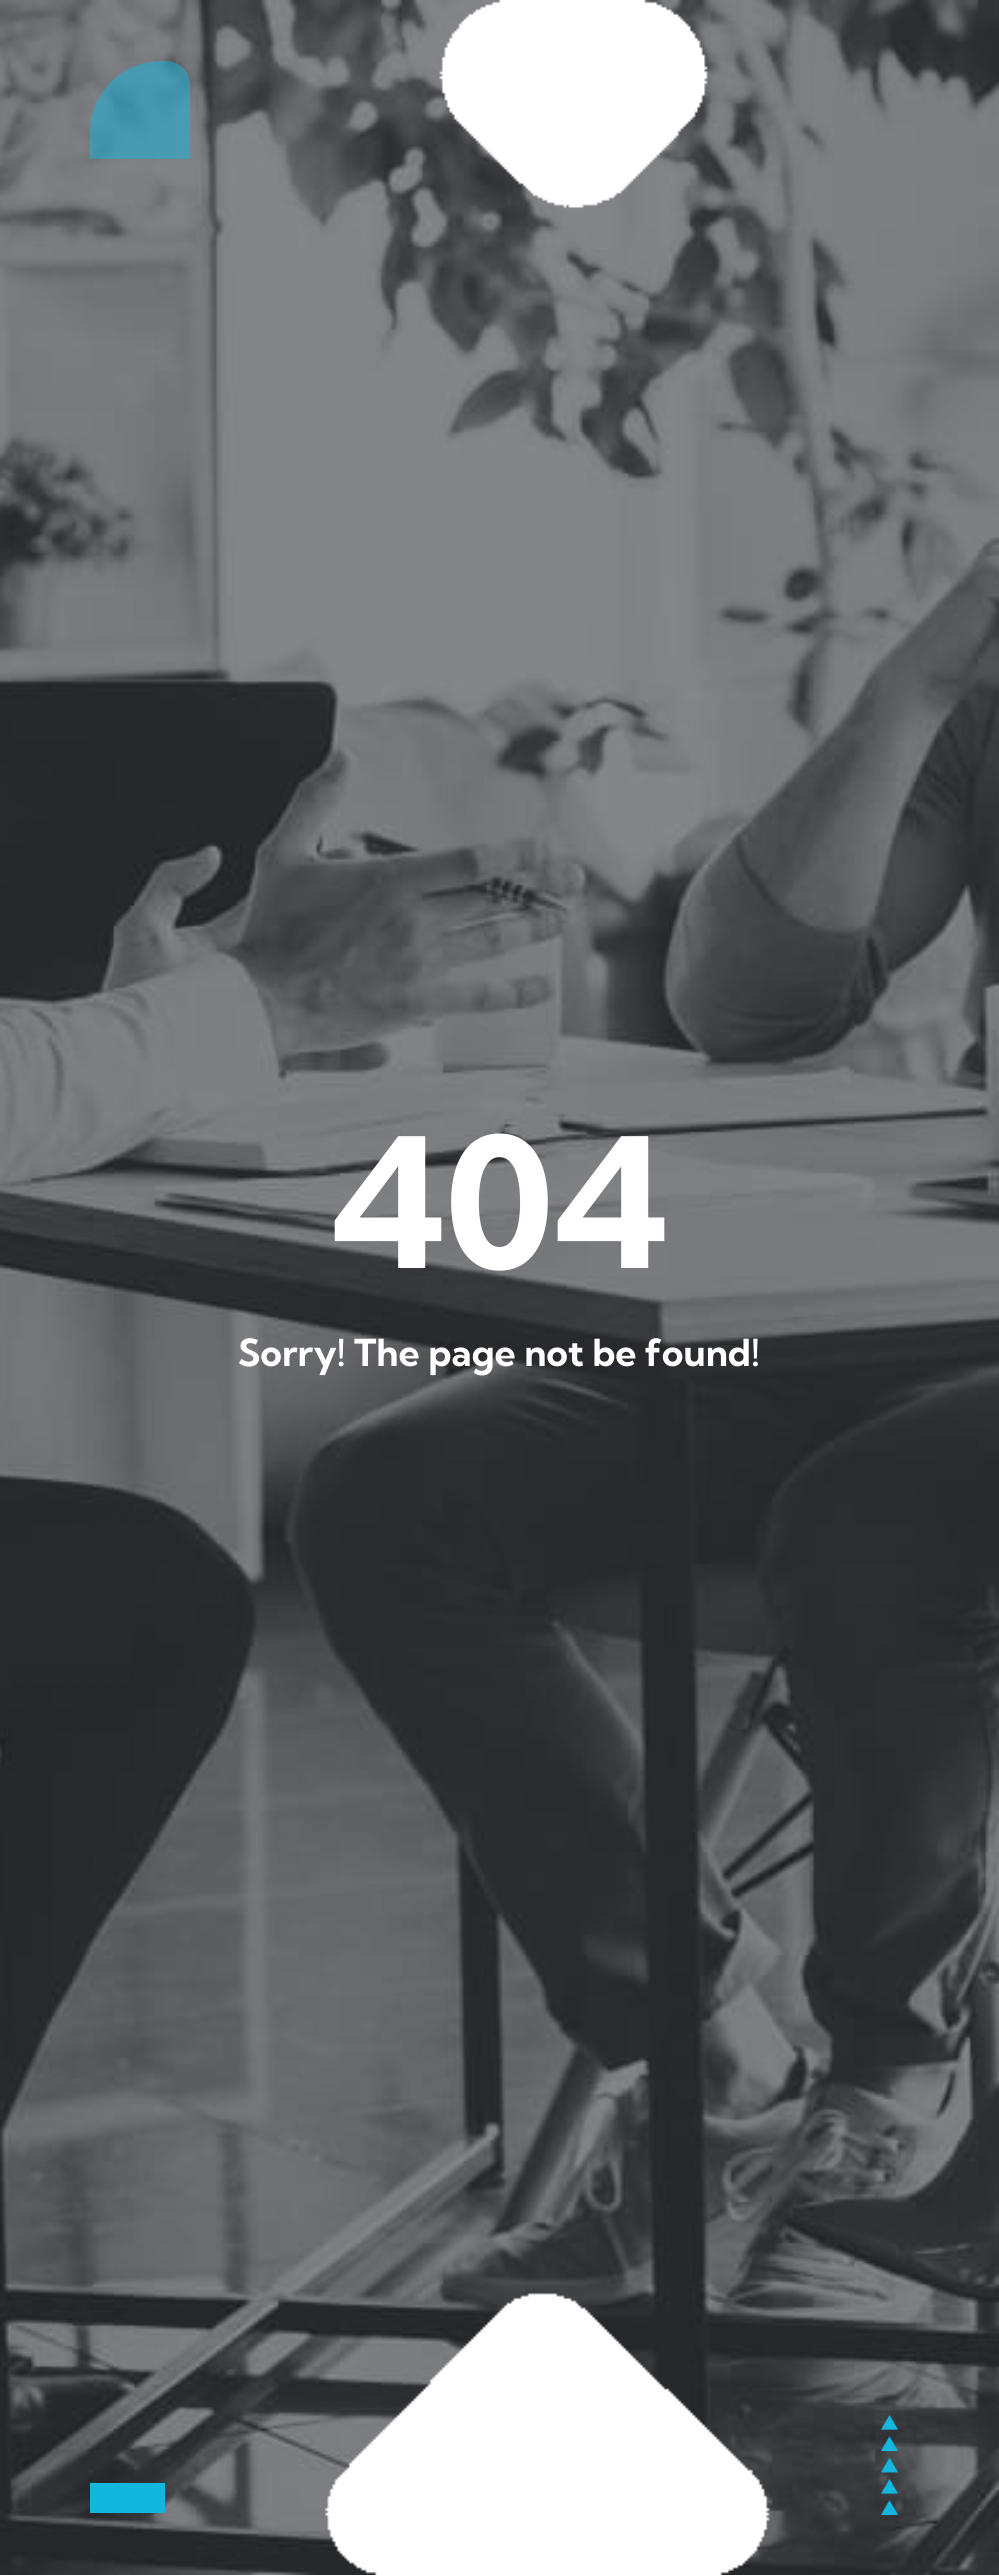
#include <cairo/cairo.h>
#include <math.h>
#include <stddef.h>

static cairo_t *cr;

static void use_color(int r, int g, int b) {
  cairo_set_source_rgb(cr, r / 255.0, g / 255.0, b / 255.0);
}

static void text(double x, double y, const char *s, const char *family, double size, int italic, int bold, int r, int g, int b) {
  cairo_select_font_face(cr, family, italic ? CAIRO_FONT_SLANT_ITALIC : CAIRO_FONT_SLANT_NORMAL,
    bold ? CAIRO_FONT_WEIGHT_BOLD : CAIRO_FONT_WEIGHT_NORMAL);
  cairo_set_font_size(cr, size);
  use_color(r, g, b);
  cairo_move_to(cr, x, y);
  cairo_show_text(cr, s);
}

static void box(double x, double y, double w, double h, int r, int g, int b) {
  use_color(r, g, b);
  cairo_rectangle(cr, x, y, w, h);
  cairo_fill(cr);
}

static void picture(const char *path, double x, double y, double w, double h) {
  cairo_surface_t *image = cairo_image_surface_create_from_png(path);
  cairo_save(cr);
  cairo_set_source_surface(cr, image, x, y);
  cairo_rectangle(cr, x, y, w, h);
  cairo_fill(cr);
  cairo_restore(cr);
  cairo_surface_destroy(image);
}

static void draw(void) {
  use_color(28, 30, 39);
  cairo_paint(cr);
  picture("img_01.png", 0, 0, 999, 2575);
  picture("img_02.png", 324, 0, 446, 2575);
  picture("img_03.png", 90, 61, 100, 98);
  box(90, 2483, 75, 30, 18, 182, 223);
  picture("img_04.png", 881, 2415, 17, 100);
  text(331, 1268, "404", "Kumbh Sans", 180, 0, 1, 255, 255, 255);
  text(238, 1366, "Sorry! The page not be found!", "Kumbh Sans", 37.25, 0, 1, 255, 255, 255);
}

int main(void) {
  cairo_surface_t *surface = cairo_image_surface_create(CAIRO_FORMAT_RGB24, 999, 2575);
  cr = cairo_create(surface);
  cairo_font_options_t *options = cairo_font_options_create();
  cairo_font_options_set_hint_metrics(options, CAIRO_HINT_METRICS_OFF);
  cairo_font_options_set_hint_style(options, CAIRO_HINT_STYLE_NONE);
  cairo_set_font_options(cr, options);
  cairo_set_miter_limit(cr, 4);
  draw();
  cairo_surface_write_to_png(surface, "out.png");
  cairo_font_options_destroy(options);
  cairo_destroy(cr);
  cairo_surface_destroy(surface);
  return 0;
}
